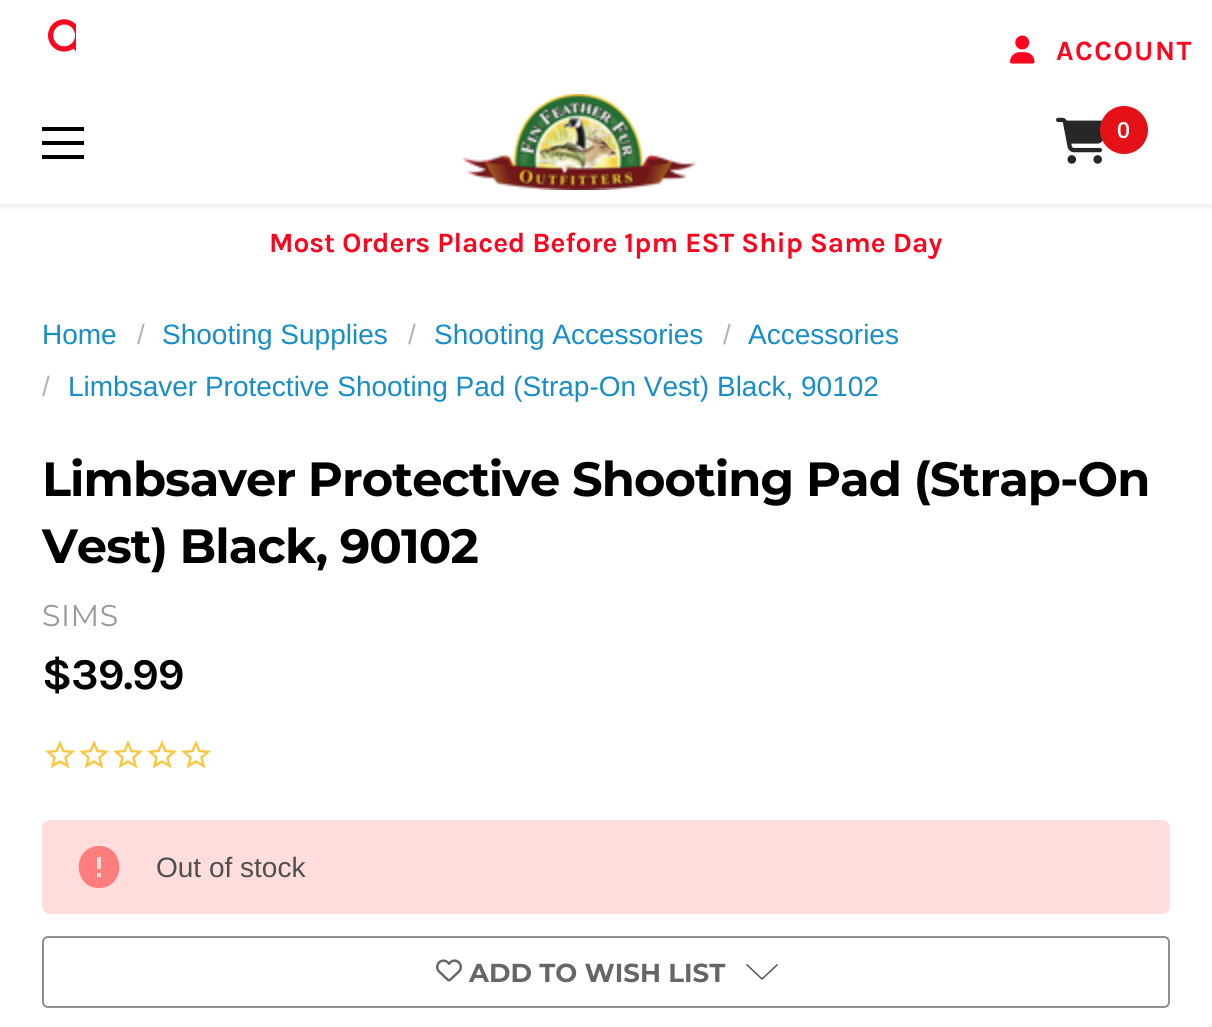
#include <cairo/cairo.h>
#include <math.h>
#include <stddef.h>

static cairo_t *cr;

static void use_color(int r, int g, int b) {
  cairo_set_source_rgb(cr, r / 255.0, g / 255.0, b / 255.0);
}

static void text(double x, double y, const char *s, const char *family, double size, int italic, int bold, int r, int g, int b) {
  cairo_select_font_face(cr, family, italic ? CAIRO_FONT_SLANT_ITALIC : CAIRO_FONT_SLANT_NORMAL,
    bold ? CAIRO_FONT_WEIGHT_BOLD : CAIRO_FONT_WEIGHT_NORMAL);
  cairo_set_font_size(cr, size);
  use_color(r, g, b);
  cairo_move_to(cr, x, y);
  cairo_show_text(cr, s);
}

static void spaced_text(double x, double y, const char *s, double letter, double word) {
  cairo_move_to(cr, x, y);
  while (*s) {
    char ch[5] = {0};
    int n = 0;
    do ch[n++] = *s++; while ((*s & 0xC0) == 0x80);
    cairo_show_text(cr, ch);
    cairo_rel_move_to(cr, letter + word * (*ch == ' '), 0);
  }
}

static void box(double x, double y, double w, double h, int r, int g, int b) {
  use_color(r, g, b);
  cairo_rectangle(cr, x, y, w, h);
  cairo_fill(cr);
}

static void round_rect(double x, double y, double w, double h, double r) {
  cairo_new_sub_path(cr);
  cairo_arc(cr, x + w - r, y + h - r, r, 0, M_PI / 2);
  cairo_arc(cr, x + r, y + h - r, r, M_PI / 2, M_PI);
  cairo_arc(cr, x + r, y + r, r, M_PI, 1.5 * M_PI);
  cairo_arc(cr, x + w - r, y + r, r, 1.5 * M_PI, 2 * M_PI);
  cairo_close_path(cr);
}

static void shadow(double x, double y, double w, double h, double r, double blur, double alpha) {
  cairo_push_group_with_content(cr, CAIRO_CONTENT_ALPHA);
  cairo_set_operator(cr, CAIRO_OPERATOR_SOURCE);
  for (int i = 15; i >= -15 && fmin(w, h) + blur * i / 3 > 0; i -= 2) {
    double e = blur * i / 6;
    cairo_set_source_rgba(cr, 0, 0, 0, alpha * erfc((i - 1) / 8.5) / 2);
    round_rect(x - e, y - e, w + 2 * e, h + 2 * e, fmax(0, fmin(r + e + blur * .6, fmin(w, h) / 2 + e)));
    cairo_fill(cr);
  }
  cairo_pattern_t *soft = cairo_pop_group(cr);
  cairo_mask(cr, soft);
  cairo_pattern_destroy(soft);
}

static void picture(const char *path, double x, double y, double w, double h) {
  cairo_surface_t *image = cairo_image_surface_create_from_png(path);
  cairo_save(cr);
  cairo_set_source_surface(cr, image, x, y);
  cairo_rectangle(cr, x, y, w, h);
  cairo_fill(cr);
  cairo_restore(cr);
  cairo_surface_destroy(image);
}

static void draw(void) {
  use_color(255, 255, 255);
  cairo_paint(cr);
  cairo_save(cr);
  cairo_rectangle(cr, 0, 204, 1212, 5);
  cairo_clip(cr);
  use_color(0, 0, 0);
  shadow(0, 82, 1212, 124, 0, 4, 0.1);
  cairo_restore(cr);
  box(0, 77, 1212, 3, 255, 255, 255);
  picture("img_01.png", 48, 19, 28, 33);
  picture("img_02.png", 1010, 35, 25, 29);
  box(42, 127, 42, 4, 0, 0, 0);
  box(42, 155, 42, 4, 0, 0, 0);
  box(42, 141, 42, 4, 0, 0, 0);
  picture("img_03.png", 461, 94, 235, 96);
  picture("img_04.png", 1056, 117, 47, 47);
  use_color(228, 18, 23);
  cairo_arc(cr, 1124, 130, 24, 0, 2 * M_PI);
  cairo_fill(cr);
  picture("img_05.png", 45, 740, 30, 29);
  picture("img_05.png", 79, 740, 30, 29);
  picture("img_05.png", 113, 740, 30, 29);
  picture("img_05.png", 147, 740, 30, 29);
  picture("img_05.png", 181, 740, 30, 29);
  use_color(255, 221, 221);
  round_rect(42, 820, 1128, 94, 8);
  cairo_fill(cr);
  use_color(255, 125, 125);
  cairo_new_path(cr);
  cairo_move_to(cr, 99, 846);
  cairo_curve_to(cr, 72, 846, 72, 888, 99, 888);
  cairo_curve_to(cr, 126, 888, 126, 846, 99, 846);
  cairo_close_path(cr);
  cairo_move_to(cr, 101, 877);
  cairo_line_to(cr, 97, 877);
  cairo_line_to(cr, 97, 873);
  cairo_line_to(cr, 101, 873);
  cairo_close_path(cr);
  cairo_move_to(cr, 101, 869);
  cairo_line_to(cr, 97, 869);
  cairo_line_to(cr, 97, 857);
  cairo_line_to(cr, 101, 857);
  cairo_close_path(cr);
  cairo_fill(cr);
  round_rect(43, 937, 1126, 70, 5);
  use_color(143, 143, 143);
  cairo_stroke(cr);
  picture("img_06.png", 436, 959, 26, 23);
  use_color(79, 79, 79);
  cairo_set_fill_rule(cr, CAIRO_FILL_RULE_EVEN_ODD);
  cairo_new_path(cr);
  cairo_move_to(cr, 762, 978);
  cairo_line_to(cr, 777, 964);
  cairo_line_to(cr, 778, 965);
  cairo_line_to(cr, 762, 980);
  cairo_line_to(cr, 746, 965);
  cairo_line_to(cr, 747, 964);
  cairo_close_path(cr);
  cairo_fill(cr);
  box(1208, 1024, 4, 3, 245, 245, 245);
  cairo_select_font_face(cr, "Karla", CAIRO_FONT_SLANT_NORMAL, CAIRO_FONT_WEIGHT_BOLD);
  cairo_set_font_size(cr, 28);
  use_color(252, 6, 31);
  spaced_text(1056, 60, "ACCOUNT", 1.5, 0);
  text(1117, 138, "0", "Arimo", 22, 0, 1, 255, 255, 255);
  text(269, 252, "Most Orders Placed Before 1pm EST Ship Same Day", "Karla", 28, 0, 1, 252, 6, 31);
  text(42, 344, "Home", "Arimo", 28, 0, 0, 23, 141, 201);
  text(137, 344, "/", "Arimo", 28, 0, 0, 180, 180, 180);
  text(162, 344, "Shooting Supplies", "Arimo", 28, 0, 0, 23, 141, 201);
  text(408, 344, "/", "Arimo", 28, 0, 0, 180, 180, 180);
  text(434, 344, "Shooting Accessories", "Arimo", 28, 0, 0, 23, 141, 201);
  text(723, 344, "/", "Arimo", 28, 0, 0, 180, 180, 180);
  text(748, 344, "Accessories", "Arimo", 28, 0, 0, 23, 141, 201);
  text(42, 396, "/", "Arimo", 28, 0, 0, 180, 180, 180);
  text(68, 396, "Limbsaver Protective Shooting Pad (Strap-On Vest) Black, 90102", "Arimo", 28, 0, 0, 23, 141, 201);
  cairo_select_font_face(cr, "Montserrat", CAIRO_FONT_SLANT_NORMAL, CAIRO_FONT_WEIGHT_BOLD);
  cairo_set_font_size(cr, 48);
  use_color(0, 0, 0);
  spaced_text(42, 496, "Limbsaver Protective Shooting Pad (Strap-On", -0.95, 0);
  spaced_text(42, 563, "Vest) Black, 90102", -0.95, 0);
  cairo_select_font_face(cr, "Montserrat", CAIRO_FONT_SLANT_NORMAL, CAIRO_FONT_WEIGHT_NORMAL);
  cairo_set_font_size(cr, 30);
  use_color(152, 152, 152);
  spaced_text(42, 626, "SIMS", 0.5, 0);
  cairo_select_font_face(cr, "Karla", CAIRO_FONT_SLANT_NORMAL, CAIRO_FONT_WEIGHT_BOLD);
  cairo_set_font_size(cr, 44);
  use_color(0, 0, 0);
  spaced_text(42, 689, "$39.99", -1, 0);
  text(156, 877, "Out of stock", "Arimo", 28, 0, 0, 79, 79, 79);
  text(469, 982, "ADD TO WISH LIST", "Montserrat", 26, 0, 1, 102, 102, 102);
}

int main(void) {
  cairo_surface_t *surface = cairo_image_surface_create(CAIRO_FORMAT_RGB24, 1212, 1027);
  cr = cairo_create(surface);
  cairo_font_options_t *options = cairo_font_options_create();
  cairo_font_options_set_hint_metrics(options, CAIRO_HINT_METRICS_OFF);
  cairo_font_options_set_hint_style(options, CAIRO_HINT_STYLE_NONE);
  cairo_set_font_options(cr, options);
  cairo_set_miter_limit(cr, 4);
  draw();
  cairo_surface_write_to_png(surface, "out.png");
  cairo_font_options_destroy(options);
  cairo_destroy(cr);
  cairo_surface_destroy(surface);
  return 0;
}
